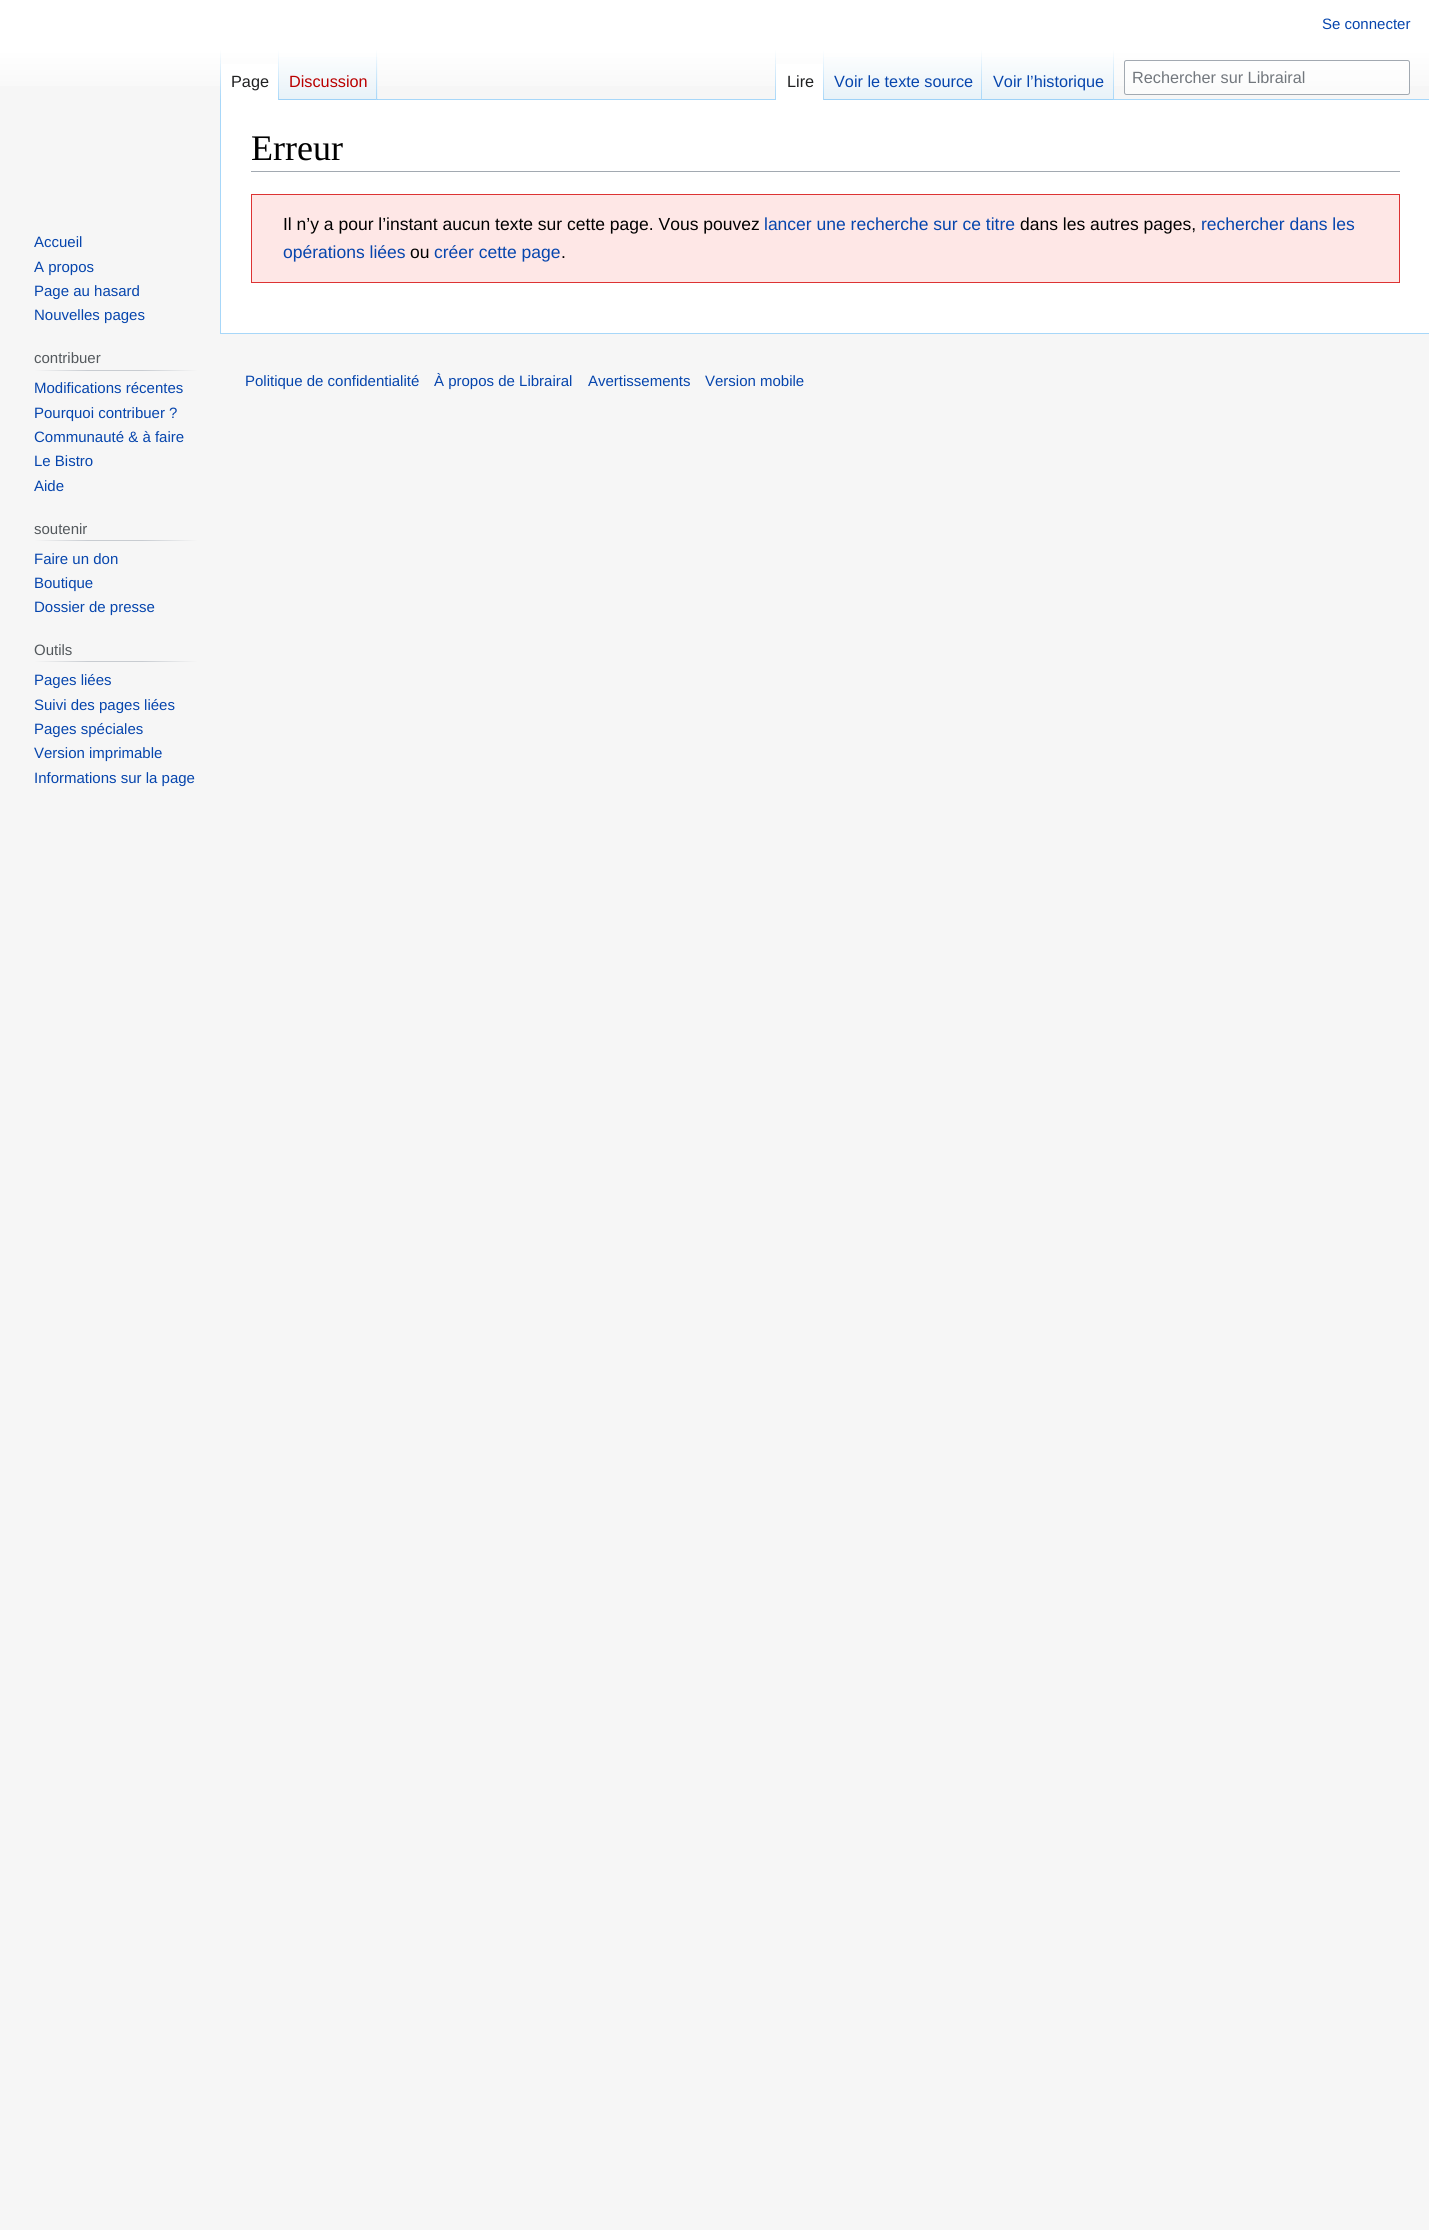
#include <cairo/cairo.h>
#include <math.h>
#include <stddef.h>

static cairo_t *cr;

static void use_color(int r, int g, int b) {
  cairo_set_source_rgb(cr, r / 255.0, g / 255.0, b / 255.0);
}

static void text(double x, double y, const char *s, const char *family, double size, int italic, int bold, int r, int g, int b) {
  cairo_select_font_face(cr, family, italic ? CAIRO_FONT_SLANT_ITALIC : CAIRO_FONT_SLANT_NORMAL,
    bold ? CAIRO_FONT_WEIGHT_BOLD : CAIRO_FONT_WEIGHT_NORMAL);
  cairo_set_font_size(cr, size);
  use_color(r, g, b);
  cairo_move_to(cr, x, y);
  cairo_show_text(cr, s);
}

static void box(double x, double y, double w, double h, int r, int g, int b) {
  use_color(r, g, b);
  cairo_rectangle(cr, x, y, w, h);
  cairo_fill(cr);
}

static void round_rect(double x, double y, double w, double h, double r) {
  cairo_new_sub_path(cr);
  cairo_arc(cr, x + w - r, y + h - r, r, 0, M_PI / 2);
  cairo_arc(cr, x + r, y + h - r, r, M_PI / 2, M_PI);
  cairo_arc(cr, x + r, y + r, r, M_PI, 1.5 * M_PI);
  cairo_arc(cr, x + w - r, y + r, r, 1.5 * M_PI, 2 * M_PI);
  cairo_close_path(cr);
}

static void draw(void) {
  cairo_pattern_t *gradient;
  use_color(246, 246, 246);
  cairo_paint(cr);
  gradient = cairo_pattern_create_linear(715, 0, 715, 100);
  cairo_pattern_add_color_stop_rgba(gradient, 0.5, 1, 1, 1, 1);
  cairo_pattern_add_color_stop_rgba(gradient, 1, 0.965, 0.965, 0.965, 1);
  cairo_set_source(cr, gradient);
  cairo_pattern_destroy(gradient);
  cairo_rectangle(cr, 0, 0, 1429, 86);
  cairo_fill(cr);
  box(220, 333, 1209, 1, 167, 215, 249);
  box(220, 99, 1, 235, 167, 215, 249);
  gradient = cairo_pattern_create_linear(221, 50, 221, 100);
  cairo_pattern_add_color_stop_rgba(gradient, 0, 0.655, 0.843, 0.976, 0);
  cairo_pattern_add_color_stop_rgba(gradient, 1, 0.655, 0.843, 0.976, 1);
  cairo_set_source(cr, gradient);
  cairo_pattern_destroy(gradient);
  cairo_rectangle(cr, 220, 50, 1, 50);
  cairo_fill(cr);
  box(221, 64, 57, 36, 255, 255, 255);
  gradient = cairo_pattern_create_linear(278, 50, 278, 100);
  cairo_pattern_add_color_stop_rgba(gradient, 0, 1, 1, 1, 1);
  cairo_pattern_add_color_stop_rgba(gradient, 1, 0.655, 0.843, 0.976, 1);
  cairo_set_source(cr, gradient);
  cairo_pattern_destroy(gradient);
  cairo_rectangle(cr, 278, 50, 1, 50);
  cairo_fill(cr);
  gradient = cairo_pattern_create_linear(328, 100, 328, 50);
  cairo_pattern_add_color_stop_rgba(gradient, 0, 0.467, 0.757, 0.965, 1);
  cairo_pattern_add_color_stop_rgba(gradient, 0.03, 0.91, 0.949, 0.973, 1);
  cairo_pattern_add_color_stop_rgba(gradient, 1, 1, 1, 1, 1);
  cairo_set_source(cr, gradient);
  cairo_pattern_destroy(gradient);
  cairo_rectangle(cr, 279, 57, 99, 43);
  cairo_fill(cr);
  gradient = cairo_pattern_create_linear(377, 50, 377, 100);
  cairo_pattern_add_color_stop_rgba(gradient, 0, 0.655, 0.843, 0.976, 0);
  cairo_pattern_add_color_stop_rgba(gradient, 1, 0.655, 0.843, 0.976, 1);
  cairo_set_source(cr, gradient);
  cairo_pattern_destroy(gradient);
  cairo_rectangle(cr, 376, 50, 1, 50);
  cairo_fill(cr);
  box(378, 99, 1051, 1, 167, 215, 249);
  gradient = cairo_pattern_create_linear(776, 50, 776, 100);
  cairo_pattern_add_color_stop_rgba(gradient, 0, 0.655, 0.843, 0.976, 0);
  cairo_pattern_add_color_stop_rgba(gradient, 1, 0.655, 0.843, 0.976, 1);
  cairo_set_source(cr, gradient);
  cairo_pattern_destroy(gradient);
  cairo_rectangle(cr, 775, 50, 1, 50);
  cairo_fill(cr);
  box(776, 64, 47, 36, 255, 255, 255);
  gradient = cairo_pattern_create_linear(823, 50, 823, 100);
  cairo_pattern_add_color_stop_rgba(gradient, 0, 1, 1, 1, 1);
  cairo_pattern_add_color_stop_rgba(gradient, 1, 0.655, 0.843, 0.976, 1);
  cairo_set_source(cr, gradient);
  cairo_pattern_destroy(gradient);
  cairo_rectangle(cr, 823, 50, 1, 50);
  cairo_fill(cr);
  gradient = cairo_pattern_create_linear(903, 100, 903, 50);
  cairo_pattern_add_color_stop_rgba(gradient, 0, 0.467, 0.757, 0.965, 1);
  cairo_pattern_add_color_stop_rgba(gradient, 0.03, 0.91, 0.949, 0.973, 1);
  cairo_pattern_add_color_stop_rgba(gradient, 1, 1, 1, 1, 1);
  cairo_set_source(cr, gradient);
  cairo_pattern_destroy(gradient);
  cairo_rectangle(cr, 824, 57, 159, 43);
  cairo_fill(cr);
  gradient = cairo_pattern_create_linear(982, 50, 982, 100);
  cairo_pattern_add_color_stop_rgba(gradient, 0, 0.655, 0.843, 0.976, 0);
  cairo_pattern_add_color_stop_rgba(gradient, 1, 0.655, 0.843, 0.976, 1);
  cairo_set_source(cr, gradient);
  cairo_pattern_destroy(gradient);
  cairo_rectangle(cr, 981, 50, 1, 50);
  cairo_fill(cr);
  gradient = cairo_pattern_create_linear(1048, 100, 1048, 50);
  cairo_pattern_add_color_stop_rgba(gradient, 0, 0.467, 0.757, 0.965, 1);
  cairo_pattern_add_color_stop_rgba(gradient, 0.03, 0.91, 0.949, 0.973, 1);
  cairo_pattern_add_color_stop_rgba(gradient, 1, 1, 1, 1, 1);
  cairo_set_source(cr, gradient);
  cairo_pattern_destroy(gradient);
  cairo_rectangle(cr, 983, 57, 131, 43);
  cairo_fill(cr);
  gradient = cairo_pattern_create_linear(1113, 50, 1113, 100);
  cairo_pattern_add_color_stop_rgba(gradient, 0, 0.655, 0.843, 0.976, 0);
  cairo_pattern_add_color_stop_rgba(gradient, 1, 0.655, 0.843, 0.976, 1);
  cairo_set_source(cr, gradient);
  cairo_pattern_destroy(gradient);
  cairo_rectangle(cr, 1113, 50, 1, 50);
  cairo_fill(cr);
  cairo_set_source_rgba(cr, 1, 1, 1, 0.5);
  round_rect(1124.5, 60.5, 285, 34, 2);
  cairo_fill_preserve(cr);
  use_color(162, 169, 177);
  cairo_set_line_width(cr, 1);
  cairo_stroke(cr);
  gradient = cairo_pattern_create_linear(34, 371, 198, 371);
  cairo_pattern_add_color_stop_rgba(gradient, 0, 0.965, 0.965, 0.965, 1);
  cairo_pattern_add_color_stop_rgba(gradient, 0.33, 0.784, 0.8, 0.82, 1);
  cairo_pattern_add_color_stop_rgba(gradient, 0.66, 0.784, 0.8, 0.82, 1);
  cairo_pattern_add_color_stop_rgba(gradient, 1, 0.965, 0.965, 0.965, 1);
  cairo_set_source(cr, gradient);
  cairo_pattern_destroy(gradient);
  cairo_rectangle(cr, 34, 370, 164, 1);
  cairo_fill(cr);
  gradient = cairo_pattern_create_linear(34, 541, 198, 541);
  cairo_pattern_add_color_stop_rgba(gradient, 0, 0.965, 0.965, 0.965, 1);
  cairo_pattern_add_color_stop_rgba(gradient, 0.33, 0.784, 0.8, 0.82, 1);
  cairo_pattern_add_color_stop_rgba(gradient, 0.66, 0.784, 0.8, 0.82, 1);
  cairo_pattern_add_color_stop_rgba(gradient, 1, 0.965, 0.965, 0.965, 1);
  cairo_set_source(cr, gradient);
  cairo_pattern_destroy(gradient);
  cairo_rectangle(cr, 34, 540, 164, 1);
  cairo_fill(cr);
  gradient = cairo_pattern_create_linear(34, 662, 198, 662);
  cairo_pattern_add_color_stop_rgba(gradient, 0, 0.965, 0.965, 0.965, 1);
  cairo_pattern_add_color_stop_rgba(gradient, 0.33, 0.784, 0.8, 0.82, 1);
  cairo_pattern_add_color_stop_rgba(gradient, 0.66, 0.784, 0.8, 0.82, 1);
  cairo_pattern_add_color_stop_rgba(gradient, 1, 0.965, 0.965, 0.965, 1);
  cairo_set_source(cr, gradient);
  cairo_pattern_destroy(gradient);
  cairo_rectangle(cr, 34, 661, 164, 1);
  cairo_fill(cr);
  box(221, 100, 1208, 233, 255, 255, 255);
  box(251, 171, 1149, 1, 162, 169, 177);
  use_color(254, 231, 230);
  cairo_rectangle(cr, 251.5, 194.5, 1148, 88);
  cairo_fill_preserve(cr);
  use_color(221, 51, 51);
  cairo_stroke(cr);
  text(1322, 29, "Se connecter", "Liberation Sans", 15, 0, 0, 6, 69, 173);
  text(231, 87, "Page", "Liberation Sans", 16.25, 0, 0, 32, 33, 34);
  text(289, 87, "Discussion", "Liberation Sans", 16.25, 0, 0, 186, 0, 0);
  text(787, 87, "Lire", "Liberation Sans", 16.25, 0, 0, 32, 33, 34);
  text(834, 87, "Voir le texte source", "Liberation Sans", 16.25, 0, 0, 6, 69, 173);
  text(993, 87, "Voir l’historique", "Liberation Sans", 16.25, 0, 0, 6, 69, 173);
  text(1132, 83, "Rechercher sur Librairal", "Liberation Sans", 16.25, 0, 0, 114, 119, 125);
  text(34, 247, "Accueil", "Liberation Sans", 15, 0, 0, 6, 69, 173);
  text(34, 272, "A propos", "Liberation Sans", 15, 0, 0, 6, 69, 173);
  text(34, 296, "Page au hasard", "Liberation Sans", 15, 0, 0, 6, 69, 173);
  text(34, 320, "Nouvelles pages", "Liberation Sans", 15, 0, 0, 6, 69, 173);
  text(34, 363, "contribuer", "Liberation Sans", 15, 0, 0, 84, 89, 93);
  text(34, 393, "Modifications récentes", "Liberation Sans", 15, 0, 0, 6, 69, 173);
  text(34, 418, "Pourquoi contribuer ?", "Liberation Sans", 15, 0, 0, 6, 69, 173);
  text(34, 442, "Communauté & à faire", "Liberation Sans", 15, 0, 0, 6, 69, 173);
  text(34, 466, "Le Bistro", "Liberation Sans", 15, 0, 0, 6, 69, 173);
  text(34, 491, "Aide", "Liberation Sans", 15, 0, 0, 6, 69, 173);
  text(34, 534, "soutenir", "Liberation Sans", 15, 0, 0, 84, 89, 93);
  text(34, 564, "Faire un don", "Liberation Sans", 15, 0, 0, 6, 69, 173);
  text(34, 588, "Boutique", "Liberation Sans", 15, 0, 0, 6, 69, 173);
  text(34, 612, "Dossier de presse", "Liberation Sans", 15, 0, 0, 6, 69, 173);
  text(34, 655, "Outils", "Liberation Sans", 15, 0, 0, 84, 89, 93);
  text(34, 685, "Pages liées", "Liberation Sans", 15, 0, 0, 6, 69, 173);
  text(34, 710, "Suivi des pages liées", "Liberation Sans", 15, 0, 0, 6, 69, 173);
  text(34, 734, "Pages spéciales", "Liberation Sans", 15, 0, 0, 6, 69, 173);
  text(34, 758, "Version imprimable", "Liberation Sans", 15, 0, 0, 6, 69, 173);
  text(34, 783, "Informations sur la page", "Liberation Sans", 15, 0, 0, 6, 69, 173);
  text(251, 160, "Erreur", "Liberation Serif", 36, 0, 0, 0, 0, 0);
  text(283, 230, "Il n’y a pour l’instant aucun texte sur cette page. Vous pouvez", "Liberation Sans", 17.5, 0, 0, 0, 0, 0);
  text(764, 230, "lancer une recherche sur ce titre", "Liberation Sans", 17.5, 0, 0, 6, 69, 173);
  text(1020, 230, "dans les autres pages,", "Liberation Sans", 17.5, 0, 0, 0, 0, 0);
  text(1201, 230, "rechercher dans les", "Liberation Sans", 17.5, 0, 0, 6, 69, 173);
  text(283, 258, "opérations liées", "Liberation Sans", 17.5, 0, 0, 6, 69, 173);
  text(410, 258, "ou", "Liberation Sans", 17.5, 0, 0, 0, 0, 0);
  text(434, 258, "créer cette page", "Liberation Sans", 17.5, 0, 0, 6, 69, 173);
  text(561, 258, ".", "Liberation Sans", 17.5, 0, 0, 0, 0, 0);
  text(245, 386, "Politique de confidentialité", "Liberation Sans", 15, 0, 0, 6, 69, 173);
  text(434, 386, "À propos de Librairal", "Liberation Sans", 15, 0, 0, 6, 69, 173);
  text(588, 386, "Avertissements", "Liberation Sans", 15, 0, 0, 6, 69, 173);
  text(705, 386, "Version mobile", "Liberation Sans", 15, 0, 0, 6, 69, 173);
}

int main(void) {
  cairo_surface_t *surface = cairo_image_surface_create(CAIRO_FORMAT_RGB24, 1429, 2230);
  cr = cairo_create(surface);
  cairo_font_options_t *options = cairo_font_options_create();
  cairo_font_options_set_hint_metrics(options, CAIRO_HINT_METRICS_OFF);
  cairo_font_options_set_hint_style(options, CAIRO_HINT_STYLE_NONE);
  cairo_set_font_options(cr, options);
  cairo_set_miter_limit(cr, 4);
  draw();
  cairo_surface_write_to_png(surface, "out.png");
  cairo_font_options_destroy(options);
  cairo_destroy(cr);
  cairo_surface_destroy(surface);
  return 0;
}
